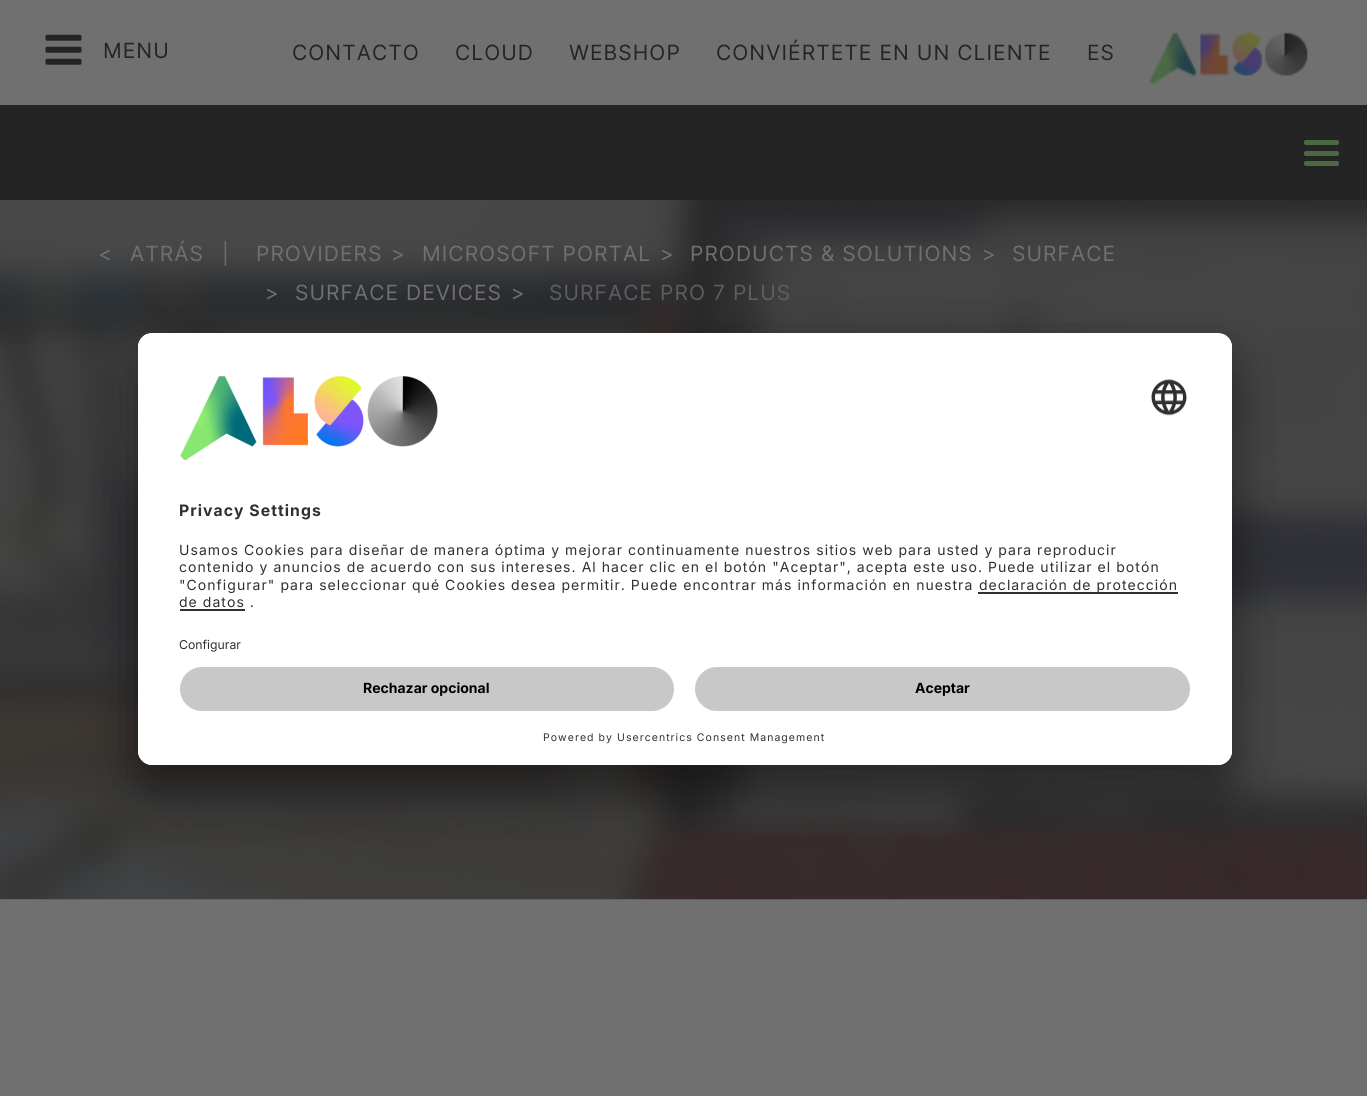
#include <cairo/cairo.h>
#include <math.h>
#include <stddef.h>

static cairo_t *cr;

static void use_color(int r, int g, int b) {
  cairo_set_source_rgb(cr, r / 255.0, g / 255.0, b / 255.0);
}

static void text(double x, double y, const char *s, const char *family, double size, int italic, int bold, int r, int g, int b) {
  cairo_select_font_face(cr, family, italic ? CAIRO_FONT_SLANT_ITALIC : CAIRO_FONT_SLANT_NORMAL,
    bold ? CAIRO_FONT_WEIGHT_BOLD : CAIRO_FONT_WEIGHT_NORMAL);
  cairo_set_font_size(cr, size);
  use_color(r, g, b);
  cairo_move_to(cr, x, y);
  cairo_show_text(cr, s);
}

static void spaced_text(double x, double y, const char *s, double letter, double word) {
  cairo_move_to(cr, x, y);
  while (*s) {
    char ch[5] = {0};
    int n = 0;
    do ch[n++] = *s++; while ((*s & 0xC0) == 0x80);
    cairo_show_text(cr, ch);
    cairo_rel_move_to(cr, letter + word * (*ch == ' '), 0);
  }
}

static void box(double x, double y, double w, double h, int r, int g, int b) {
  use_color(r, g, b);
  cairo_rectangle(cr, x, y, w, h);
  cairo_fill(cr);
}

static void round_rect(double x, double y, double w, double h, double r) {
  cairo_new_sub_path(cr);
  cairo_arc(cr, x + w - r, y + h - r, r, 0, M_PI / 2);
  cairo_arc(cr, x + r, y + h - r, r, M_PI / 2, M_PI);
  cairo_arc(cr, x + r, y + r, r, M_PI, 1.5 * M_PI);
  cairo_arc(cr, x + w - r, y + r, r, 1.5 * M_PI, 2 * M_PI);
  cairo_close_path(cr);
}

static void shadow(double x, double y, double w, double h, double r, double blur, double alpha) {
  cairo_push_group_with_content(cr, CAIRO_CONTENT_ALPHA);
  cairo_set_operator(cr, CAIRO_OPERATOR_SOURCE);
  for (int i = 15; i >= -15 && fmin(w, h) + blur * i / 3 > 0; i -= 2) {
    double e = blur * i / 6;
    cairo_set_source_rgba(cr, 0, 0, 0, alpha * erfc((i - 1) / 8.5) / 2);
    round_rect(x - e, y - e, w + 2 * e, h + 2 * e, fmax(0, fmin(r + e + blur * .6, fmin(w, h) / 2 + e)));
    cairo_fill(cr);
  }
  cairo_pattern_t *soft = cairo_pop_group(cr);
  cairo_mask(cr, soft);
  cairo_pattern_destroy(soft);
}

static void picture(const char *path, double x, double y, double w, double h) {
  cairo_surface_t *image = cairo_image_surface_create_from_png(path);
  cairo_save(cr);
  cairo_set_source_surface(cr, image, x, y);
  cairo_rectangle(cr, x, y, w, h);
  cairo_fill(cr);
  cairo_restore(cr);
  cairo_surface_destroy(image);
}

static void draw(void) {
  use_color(112, 112, 112);
  cairo_paint(cr);
  picture("img_01.png", 45, 34, 37, 31);
  picture("img_02.png", 1149, 32, 159, 53);
  box(0, 105, 1367, 95, 36, 36, 36);
  use_color(75, 106, 68);
  round_rect(1304, 140, 35, 5, 2);
  cairo_fill(cr);
  round_rect(1304, 151, 35, 5, 2);
  cairo_fill(cr);
  round_rect(1304, 161, 35, 5, 2);
  cairo_fill(cr);
  picture("img_03.png", 0, 200, 1367, 700);
  use_color(0, 0, 0);
  shadow(138, 368, 1094, 432, 14, 24.5, 0.3);
  shadow(138, 341, 1094, 433, 14, 23, 0.22);
  use_color(255, 255, 255);
  round_rect(138, 333, 1094, 432, 14);
  cairo_fill(cr);
  cairo_save(cr);
  round_rect(138, 333, 1094, 432, 14);
  cairo_clip(cr);
  cairo_new_path(cr);
  cairo_move_to(cr, 152, 333);
  cairo_line_to(cr, 1218, 333);
  cairo_curve_to(cr, 1225.5, 333, 1232, 339.5, 1232, 347);
  cairo_line_to(cr, 1232, 653);
  cairo_line_to(cr, 138, 653);
  cairo_line_to(cr, 138, 347);
  cairo_curve_to(cr, 138, 339.5, 144.5, 333, 152, 333);
  cairo_close_path(cr);
  cairo_clip(cr);
  box(138, 334, 1094, 319, 255, 255, 255);
  cairo_restore(cr);
  picture("img_04.png", 180, 376, 258, 84);
  picture("img_05.png", 1151, 379, 36, 37);
  box(978, 592, 200, 2, 48, 48, 48);
  box(180, 609, 65, 2, 48, 48, 48);
  use_color(255, 255, 255);
  cairo_new_path(cr);
  cairo_move_to(cr, 138, 653);
  cairo_line_to(cr, 1232, 653);
  cairo_line_to(cr, 1232, 751);
  cairo_curve_to(cr, 1232, 758.5, 1225.5, 765, 1218, 765);
  cairo_line_to(cr, 152, 765);
  cairo_curve_to(cr, 144.5, 765, 138, 758.5, 138, 751);
  cairo_close_path(cr);
  cairo_fill(cr);
  use_color(200, 200, 200);
  round_rect(180, 667, 494, 44, 22);
  cairo_fill(cr);
  round_rect(695, 667, 495, 44, 22);
  cairo_fill(cr);
  cairo_select_font_face(cr, "Inter", CAIRO_FONT_SLANT_NORMAL, CAIRO_FONT_WEIGHT_NORMAL);
  cairo_set_font_size(cr, 21);
  use_color(36, 36, 36);
  spaced_text(103, 58, "MENU", 1.05, 0);
  spaced_text(292, 60, "CONTACTO", 1.05, 0);
  spaced_text(455, 60, "CLOUD", 1.05, 0);
  spaced_text(569, 60, "WEBSHOP", 1.05, 0);
  spaced_text(716, 60, "CONVIÉRTETE EN UN CLIENTE", 1.05, 0);
  spaced_text(1087, 60, "ES", 1.05, 0);
  use_color(112, 112, 112);
  spaced_text(98, 261, "<", 1.05, 0);
  spaced_text(130, 261, "ATRÁS", 1.05, 0);
  spaced_text(222, 261, "|", 1.05, 0);
  spaced_text(256, 261, "PROVIDERS", 1.05, 0);
  spaced_text(391, 261, ">", 1.05, 0);
  spaced_text(422, 261, "MICROSOFT PORTAL", 1.05, 0);
  spaced_text(660, 261, ">", 1.05, 0);
  spaced_text(690, 261, "PRODUCTS & SOLUTIONS", 1.05, 0);
  spaced_text(982, 261, ">", 1.05, 0);
  spaced_text(1012, 261, "SURFACE", 1.05, 0);
  spaced_text(265, 300, ">", 1.05, 0);
  spaced_text(295, 300, "SURFACE DEVICES", 1.05, 0);
  spaced_text(511, 300, ">", 1.05, 0);
  use_color(94, 94, 94);
  spaced_text(549, 300, "SURFACE PRO 7 PLUS", 1.05, 0);
  cairo_select_font_face(cr, "Inter", CAIRO_FONT_SLANT_NORMAL, CAIRO_FONT_WEIGHT_BOLD);
  cairo_set_font_size(cr, 15.75);
  use_color(48, 48, 48);
  spaced_text(179, 516, "Privacy Settings", 1.05, 0);
  cairo_select_font_face(cr, "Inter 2", CAIRO_FONT_SLANT_NORMAL, CAIRO_FONT_WEIGHT_NORMAL);
  cairo_set_font_size(cr, 14);
  spaced_text(179, 555, "Usamos Cookies para diseñar de manera óptima y mejorar continuamente nuestros sitios web para usted y para reproducir", 1.05, 0);
  spaced_text(179, 572, "contenido y anuncios de acuerdo con sus intereses. Al hacer clic en el botón \"Aceptar\", acepta este uso. Puede utilizar el botón", 1.05, 0);
  spaced_text(179, 590, "\"Configurar\" para seleccionar qué Cookies desea permitir. Puede encontrar más información en nuestra", 1.05, 0);
  spaced_text(979, 590, "declaración de protección", 1.05, 0);
  spaced_text(179, 607, "de datos .", 1.05, 0);
  text(179, 649, "Configurar", "Inter 2", 12.25, 0, 0, 48, 48, 48);
  text(363, 693, "Rechazar opcional", "Inter", 14, 0, 1, 0, 0, 0);
  text(915, 693, "Aceptar", "Inter", 14, 0, 1, 0, 0, 0);
  cairo_select_font_face(cr, "Inter 2", CAIRO_FONT_SLANT_NORMAL, CAIRO_FONT_WEIGHT_NORMAL);
  cairo_set_font_size(cr, 10.5);
  use_color(48, 48, 48);
  spaced_text(543, 741, "Powered by Usercentrics Consent Management", 1.05, 0);
}

int main(void) {
  cairo_surface_t *surface = cairo_image_surface_create(CAIRO_FORMAT_RGB24, 1367, 1096);
  cr = cairo_create(surface);
  cairo_font_options_t *options = cairo_font_options_create();
  cairo_font_options_set_hint_metrics(options, CAIRO_HINT_METRICS_OFF);
  cairo_font_options_set_hint_style(options, CAIRO_HINT_STYLE_NONE);
  cairo_set_font_options(cr, options);
  cairo_set_miter_limit(cr, 4);
  draw();
  cairo_surface_write_to_png(surface, "out.png");
  cairo_font_options_destroy(options);
  cairo_destroy(cr);
  cairo_surface_destroy(surface);
  return 0;
}
